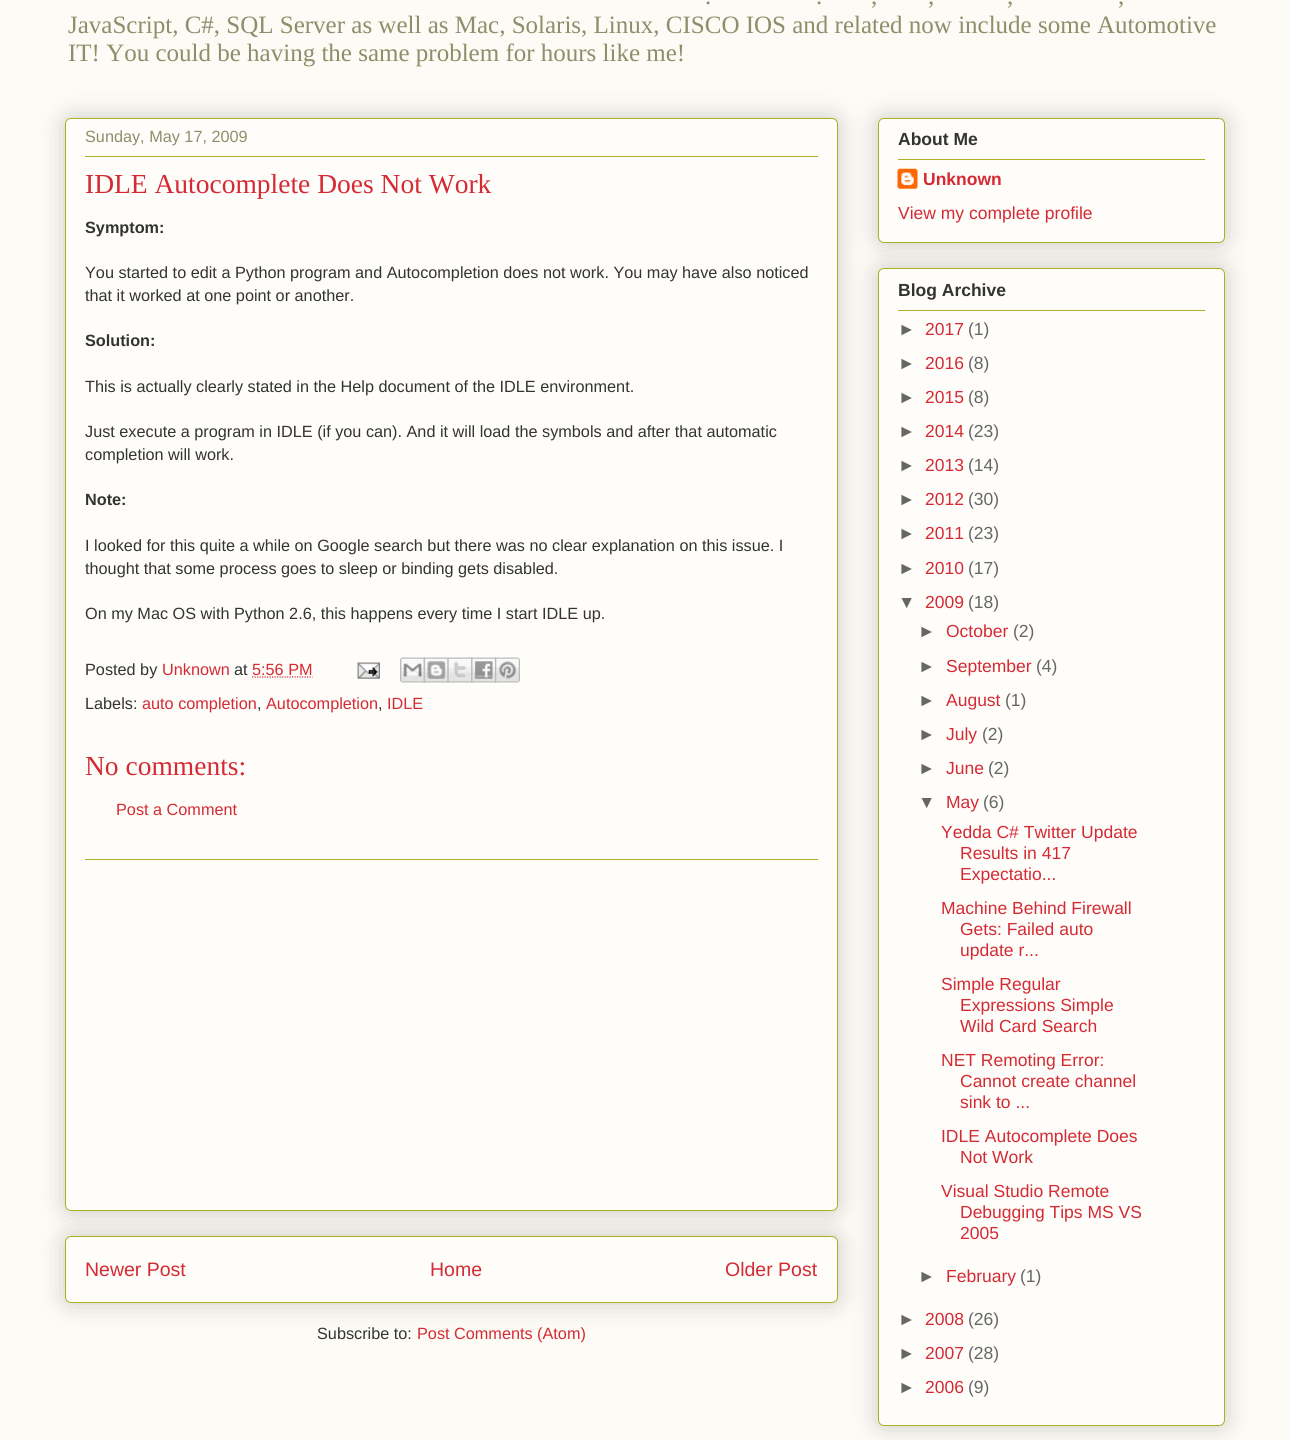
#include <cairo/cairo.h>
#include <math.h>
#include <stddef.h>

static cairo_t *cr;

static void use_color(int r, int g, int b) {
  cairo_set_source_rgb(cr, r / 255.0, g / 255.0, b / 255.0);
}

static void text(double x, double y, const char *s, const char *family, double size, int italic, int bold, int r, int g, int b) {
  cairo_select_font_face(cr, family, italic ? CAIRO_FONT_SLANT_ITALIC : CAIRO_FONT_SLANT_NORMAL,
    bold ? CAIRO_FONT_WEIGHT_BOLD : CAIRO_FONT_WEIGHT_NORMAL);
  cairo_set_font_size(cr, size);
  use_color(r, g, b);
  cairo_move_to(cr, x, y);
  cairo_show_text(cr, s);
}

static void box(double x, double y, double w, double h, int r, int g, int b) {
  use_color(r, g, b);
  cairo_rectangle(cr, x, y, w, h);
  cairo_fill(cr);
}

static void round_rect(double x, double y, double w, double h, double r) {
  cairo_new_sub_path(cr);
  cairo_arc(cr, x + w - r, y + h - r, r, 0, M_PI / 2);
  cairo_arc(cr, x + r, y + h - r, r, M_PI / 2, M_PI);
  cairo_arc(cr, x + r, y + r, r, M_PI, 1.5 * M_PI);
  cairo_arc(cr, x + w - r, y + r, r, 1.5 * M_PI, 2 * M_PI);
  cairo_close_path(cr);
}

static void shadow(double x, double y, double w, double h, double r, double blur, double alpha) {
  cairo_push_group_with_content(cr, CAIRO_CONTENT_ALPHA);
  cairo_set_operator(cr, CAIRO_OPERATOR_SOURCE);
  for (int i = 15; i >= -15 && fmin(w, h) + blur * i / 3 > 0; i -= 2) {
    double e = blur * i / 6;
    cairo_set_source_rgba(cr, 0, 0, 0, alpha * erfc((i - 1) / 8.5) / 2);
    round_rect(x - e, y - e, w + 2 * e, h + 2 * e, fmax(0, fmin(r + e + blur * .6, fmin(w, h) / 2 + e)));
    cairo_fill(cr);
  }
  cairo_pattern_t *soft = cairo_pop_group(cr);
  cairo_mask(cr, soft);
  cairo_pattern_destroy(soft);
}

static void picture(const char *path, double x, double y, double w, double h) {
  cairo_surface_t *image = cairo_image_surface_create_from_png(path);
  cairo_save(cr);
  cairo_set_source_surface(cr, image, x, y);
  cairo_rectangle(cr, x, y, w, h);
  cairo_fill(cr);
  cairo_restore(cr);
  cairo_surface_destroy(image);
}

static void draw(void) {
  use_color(252, 251, 245);
  cairo_paint(cr);
  use_color(0, 0, 0);
  shadow(65, 1236, 773, 67, 6, 12.5, 0.2);
  use_color(254, 253, 250);
  round_rect(65.5, 1236.5, 772, 66, 5.5);
  cairo_fill_preserve(cr);
  use_color(170, 177, 35);
  cairo_set_line_width(cr, 1);
  cairo_stroke(cr);
  use_color(0, 0, 0);
  shadow(65, 118, 773, 1093, 6, 12.5, 0.2);
  use_color(254, 253, 250);
  round_rect(65.5, 118.5, 772, 1092, 5.5);
  cairo_fill_preserve(cr);
  use_color(170, 177, 35);
  cairo_stroke(cr);
  box(85, 156, 733, 1, 170, 177, 35);
  cairo_new_path(cr);
  cairo_move_to(cr, 252, 677);
  cairo_line_to(cr, 312.5, 677);
  use_color(213, 42, 51);
  cairo_set_line_width(cr, 1.2);
  cairo_set_dash(cr, (double[]){1.25, 1.25}, 2, 0);
  cairo_stroke(cr);
  picture("img_01.png", 357, 662, 23, 17);
  picture("img_02.png", 400, 657, 25, 26);
  picture("img_03.png", 423, 657, 26, 26);
  picture("img_04.png", 447, 657, 26, 26);
  picture("img_05.png", 471, 657, 26, 26);
  picture("img_06.png", 495, 657, 25, 26);
  box(85, 859, 733, 1, 170, 177, 35);
  use_color(0, 0, 0);
  shadow(878, 118, 347, 125, 6, 12.5, 0.2);
  use_color(254, 253, 250);
  round_rect(878.5, 118.5, 346, 124, 5.5);
  cairo_fill_preserve(cr);
  use_color(170, 177, 35);
  cairo_set_line_width(cr, 1);
  cairo_set_dash(cr, NULL, 0, 0);
  cairo_stroke(cr);
  box(898, 159, 307, 1, 170, 177, 35);
  picture("img_07.png", 897, 168, 21, 21);
  use_color(0, 0, 0);
  shadow(878, 268, 347, 1158, 6, 12.5, 0.2);
  use_color(254, 253, 250);
  round_rect(878.5, 268.5, 346, 1157, 5.5);
  cairo_fill_preserve(cr);
  use_color(170, 177, 35);
  cairo_stroke(cr);
  box(898, 310, 307, 1, 170, 177, 35);
  text(705, 4, ".", "Liberation Serif", 25, 0, 0, 144, 141, 106);
  text(816, 4, ".", "Liberation Serif", 25, 0, 0, 144, 141, 106);
  text(871, 4, ",", "Liberation Serif", 25, 0, 0, 144, 141, 106);
  text(928, 4, ",", "Liberation Serif", 25, 0, 0, 144, 141, 106);
  text(1007, 4, ",", "Liberation Serif", 25, 0, 0, 144, 141, 106);
  text(1118, 4, ",", "Liberation Serif", 25, 0, 0, 144, 141, 106);
  text(68, 33, "JavaScript, C#, SQL Server as well as Mac, Solaris, Linux, CISCO IOS and related now include some Automotive", "Liberation Serif", 25, 0, 0, 144, 141, 106);
  text(68, 61, "IT! You could be having the same problem for hours like me!", "Liberation Serif", 25, 0, 0, 144, 141, 106);
  text(85, 142, "Sunday, May 17, 2009", "Liberation Sans", 16.25, 0, 0, 144, 141, 106);
  text(85, 193, "IDLE Autocomplete Does Not Work", "Liberation Serif", 27.5, 0, 0, 213, 42, 51);
  text(85, 233, "Symptom:", "Liberation Sans", 16.25, 0, 1, 51, 51, 51);
  text(85, 278, "You started to edit a Python program and Autocompletion does not work. You may have also noticed", "Liberation Sans", 16.25, 0, 0, 51, 51, 51);
  text(85, 301, "that it worked at one point or another.", "Liberation Sans", 16.25, 0, 0, 51, 51, 51);
  text(85, 346, "Solution:", "Liberation Sans", 16.25, 0, 1, 51, 51, 51);
  text(85, 392, "This is actually clearly stated in the Help document of the IDLE environment.", "Liberation Sans", 16.25, 0, 0, 51, 51, 51);
  text(85, 437, "Just execute a program in IDLE (if you can). And it will load the symbols and after that automatic", "Liberation Sans", 16.25, 0, 0, 51, 51, 51);
  text(85, 460, "completion will work.", "Liberation Sans", 16.25, 0, 0, 51, 51, 51);
  text(85, 505, "Note:", "Liberation Sans", 16.25, 0, 1, 51, 51, 51);
  text(85, 551, "I looked for this quite a while on Google search but there was no clear explanation on this issue. I", "Liberation Sans", 16.25, 0, 0, 51, 51, 51);
  text(85, 574, "thought that some process goes to sleep or binding gets disabled.", "Liberation Sans", 16.25, 0, 0, 51, 51, 51);
  text(85, 619, "On my Mac OS with Python 2.6, this happens every time I start IDLE up.", "Liberation Sans", 16.25, 0, 0, 51, 51, 51);
  text(85, 675, "Posted by", "Liberation Sans", 16.25, 0, 0, 51, 51, 51);
  text(162, 675, "Unknown", "Liberation Sans", 16.25, 0, 0, 213, 42, 51);
  text(234, 675, "at", "Liberation Sans", 16.25, 0, 0, 51, 51, 51);
  text(252, 675, "5:56 PM", "Liberation Sans", 16.25, 0, 0, 213, 42, 51);
  text(85, 709, "Labels:", "Liberation Sans", 16.25, 0, 0, 51, 51, 51);
  text(142, 709, "auto completion", "Liberation Sans", 16.25, 0, 0, 213, 42, 51);
  text(266, 709, "Autocompletion", "Liberation Sans", 16.25, 0, 0, 213, 42, 51);
  text(387, 709, "IDLE", "Liberation Sans", 16.25, 0, 0, 213, 42, 51);
  text(257, 709, ",", "Liberation Sans", 16.25, 0, 0, 51, 51, 51);
  text(378, 709, ",", "Liberation Sans", 16.25, 0, 0, 51, 51, 51);
  text(85, 775, "No comments:", "Liberation Serif", 27.5, 0, 0, 213, 42, 51);
  text(116, 815, "Post a Comment", "Liberation Sans", 16.25, 0, 0, 213, 42, 51);
  text(85, 1276, "Newer Post", "Liberation Sans", 19.5, 0, 0, 213, 42, 51);
  text(430, 1276, "Home", "Liberation Sans", 19.5, 0, 0, 213, 42, 51);
  text(725, 1276, "Older Post", "Liberation Sans", 19.5, 0, 0, 213, 42, 51);
  text(317, 1339, "Subscribe to:", "Liberation Sans", 16.25, 0, 0, 51, 51, 51);
  text(417, 1339, "Post Comments (Atom)", "Liberation Sans", 16.25, 0, 0, 213, 42, 51);
  text(898, 145, "About Me", "Liberation Sans", 17.5, 0, 1, 51, 51, 51);
  text(923, 185, "Unknown", "Liberation Sans", 17.5, 0, 1, 213, 42, 51);
  text(898, 219, "View my complete profile", "Liberation Sans", 17.5, 0, 0, 213, 42, 51);
  text(898, 296, "Blog Archive", "Liberation Sans", 17.5, 0, 1, 51, 51, 51);
  text(898, 335, "►", "Liberation Sans", 17.5, 0, 0, 102, 102, 102);
  text(925, 335, "2017", "Liberation Sans", 17.5, 0, 0, 213, 42, 51);
  text(968, 335, "(1)", "Liberation Sans", 17.5, 0, 0, 102, 102, 102);
  text(898, 369, "►", "Liberation Sans", 17.5, 0, 0, 102, 102, 102);
  text(925, 369, "2016", "Liberation Sans", 17.5, 0, 0, 213, 42, 51);
  text(968, 369, "(8)", "Liberation Sans", 17.5, 0, 0, 102, 102, 102);
  text(898, 403, "►", "Liberation Sans", 17.5, 0, 0, 102, 102, 102);
  text(925, 403, "2015", "Liberation Sans", 17.5, 0, 0, 213, 42, 51);
  text(968, 403, "(8)", "Liberation Sans", 17.5, 0, 0, 102, 102, 102);
  text(898, 437, "►", "Liberation Sans", 17.5, 0, 0, 102, 102, 102);
  text(925, 437, "2014", "Liberation Sans", 17.5, 0, 0, 213, 42, 51);
  text(968, 437, "(23)", "Liberation Sans", 17.5, 0, 0, 102, 102, 102);
  text(898, 471, "►", "Liberation Sans", 17.5, 0, 0, 102, 102, 102);
  text(925, 471, "2013", "Liberation Sans", 17.5, 0, 0, 213, 42, 51);
  text(968, 471, "(14)", "Liberation Sans", 17.5, 0, 0, 102, 102, 102);
  text(898, 505, "►", "Liberation Sans", 17.5, 0, 0, 102, 102, 102);
  text(925, 505, "2012", "Liberation Sans", 17.5, 0, 0, 213, 42, 51);
  text(968, 505, "(30)", "Liberation Sans", 17.5, 0, 0, 102, 102, 102);
  text(898, 539, "►", "Liberation Sans", 17.5, 0, 0, 102, 102, 102);
  text(925, 539, "2011", "Liberation Sans", 17.5, 0, 0, 213, 42, 51);
  text(968, 539, "(23)", "Liberation Sans", 17.5, 0, 0, 102, 102, 102);
  text(898, 574, "►", "Liberation Sans", 17.5, 0, 0, 102, 102, 102);
  text(925, 574, "2010", "Liberation Sans", 17.5, 0, 0, 213, 42, 51);
  text(968, 574, "(17)", "Liberation Sans", 17.5, 0, 0, 102, 102, 102);
  text(898, 608, "▼", "Liberation Sans", 17.5, 0, 0, 102, 102, 102);
  text(925, 608, "2009", "Liberation Sans", 17.5, 0, 0, 213, 42, 51);
  text(968, 608, "(18)", "Liberation Sans", 17.5, 0, 0, 102, 102, 102);
  text(918, 637, "►", "Liberation Sans", 17.5, 0, 0, 102, 102, 102);
  text(946, 637, "October", "Liberation Sans", 17.5, 0, 0, 213, 42, 51);
  text(1013, 637, "(2)", "Liberation Sans", 17.5, 0, 0, 102, 102, 102);
  text(918, 672, "►", "Liberation Sans", 17.5, 0, 0, 102, 102, 102);
  text(946, 672, "September", "Liberation Sans", 17.5, 0, 0, 213, 42, 51);
  text(1036, 672, "(4)", "Liberation Sans", 17.5, 0, 0, 102, 102, 102);
  text(918, 706, "►", "Liberation Sans", 17.5, 0, 0, 102, 102, 102);
  text(946, 706, "August", "Liberation Sans", 17.5, 0, 0, 213, 42, 51);
  text(1005, 706, "(1)", "Liberation Sans", 17.5, 0, 0, 102, 102, 102);
  text(918, 740, "►", "Liberation Sans", 17.5, 0, 0, 102, 102, 102);
  text(946, 740, "July", "Liberation Sans", 17.5, 0, 0, 213, 42, 51);
  text(982, 740, "(2)", "Liberation Sans", 17.5, 0, 0, 102, 102, 102);
  text(918, 774, "►", "Liberation Sans", 17.5, 0, 0, 102, 102, 102);
  text(946, 774, "June", "Liberation Sans", 17.5, 0, 0, 213, 42, 51);
  text(988, 774, "(2)", "Liberation Sans", 17.5, 0, 0, 102, 102, 102);
  text(918, 808, "▼", "Liberation Sans", 17.5, 0, 0, 102, 102, 102);
  text(946, 808, "May", "Liberation Sans", 17.5, 0, 0, 213, 42, 51);
  text(983, 808, "(6)", "Liberation Sans", 17.5, 0, 0, 102, 102, 102);
  text(941, 838, "Yedda C# Twitter Update", "Liberation Sans", 17.5, 0, 0, 213, 42, 51);
  text(960, 859, "Results in 417", "Liberation Sans", 17.5, 0, 0, 213, 42, 51);
  text(960, 880, "Expectatio...", "Liberation Sans", 17.5, 0, 0, 213, 42, 51);
  text(941, 914, "Machine Behind Firewall", "Liberation Sans", 17.5, 0, 0, 213, 42, 51);
  text(960, 935, "Gets: Failed auto", "Liberation Sans", 17.5, 0, 0, 213, 42, 51);
  text(960, 956, "update r...", "Liberation Sans", 17.5, 0, 0, 213, 42, 51);
  text(941, 990, "Simple Regular", "Liberation Sans", 17.5, 0, 0, 213, 42, 51);
  text(960, 1011, "Expressions Simple", "Liberation Sans", 17.5, 0, 0, 213, 42, 51);
  text(960, 1032, "Wild Card Search", "Liberation Sans", 17.5, 0, 0, 213, 42, 51);
  text(941, 1066, "NET Remoting Error:", "Liberation Sans", 17.5, 0, 0, 213, 42, 51);
  text(960, 1087, "Cannot create channel", "Liberation Sans", 17.5, 0, 0, 213, 42, 51);
  text(960, 1108, "sink to ...", "Liberation Sans", 17.5, 0, 0, 213, 42, 51);
  text(941, 1142, "IDLE Autocomplete Does", "Liberation Sans", 17.5, 0, 0, 213, 42, 51);
  text(960, 1163, "Not Work", "Liberation Sans", 17.5, 0, 0, 213, 42, 51);
  text(941, 1197, "Visual Studio Remote", "Liberation Sans", 17.5, 0, 0, 213, 42, 51);
  text(960, 1218, "Debugging Tips MS VS", "Liberation Sans", 17.5, 0, 0, 213, 42, 51);
  text(960, 1239, "2005", "Liberation Sans", 17.5, 0, 0, 213, 42, 51);
  text(918, 1282, "►", "Liberation Sans", 17.5, 0, 0, 102, 102, 102);
  text(946, 1282, "February", "Liberation Sans", 17.5, 0, 0, 213, 42, 51);
  text(1020, 1282, "(1)", "Liberation Sans", 17.5, 0, 0, 102, 102, 102);
  text(898, 1325, "►", "Liberation Sans", 17.5, 0, 0, 102, 102, 102);
  text(925, 1325, "2008", "Liberation Sans", 17.5, 0, 0, 213, 42, 51);
  text(968, 1325, "(26)", "Liberation Sans", 17.5, 0, 0, 102, 102, 102);
  text(898, 1359, "►", "Liberation Sans", 17.5, 0, 0, 102, 102, 102);
  text(925, 1359, "2007", "Liberation Sans", 17.5, 0, 0, 213, 42, 51);
  text(968, 1359, "(28)", "Liberation Sans", 17.5, 0, 0, 102, 102, 102);
  text(898, 1393, "►", "Liberation Sans", 17.5, 0, 0, 102, 102, 102);
  text(925, 1393, "2006", "Liberation Sans", 17.5, 0, 0, 213, 42, 51);
  text(968, 1393, "(9)", "Liberation Sans", 17.5, 0, 0, 102, 102, 102);
}

int main(void) {
  cairo_surface_t *surface = cairo_image_surface_create(CAIRO_FORMAT_RGB24, 1290, 1440);
  cr = cairo_create(surface);
  cairo_font_options_t *options = cairo_font_options_create();
  cairo_font_options_set_hint_metrics(options, CAIRO_HINT_METRICS_OFF);
  cairo_font_options_set_hint_style(options, CAIRO_HINT_STYLE_NONE);
  cairo_set_font_options(cr, options);
  cairo_set_miter_limit(cr, 4);
  draw();
  cairo_surface_write_to_png(surface, "out.png");
  cairo_font_options_destroy(options);
  cairo_destroy(cr);
  cairo_surface_destroy(surface);
  return 0;
}
